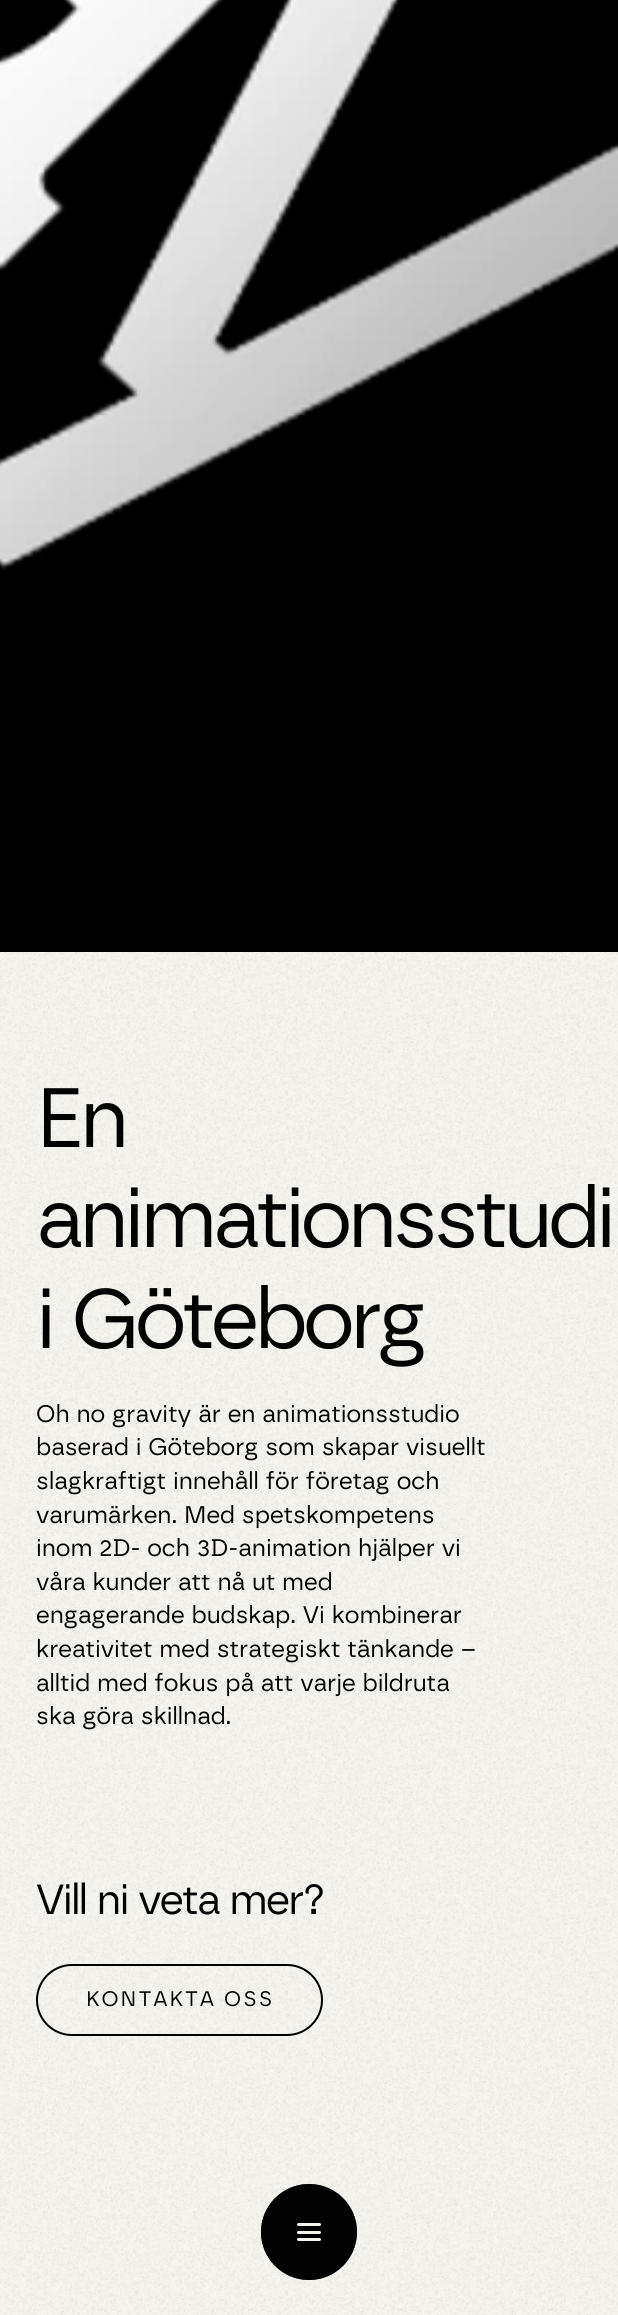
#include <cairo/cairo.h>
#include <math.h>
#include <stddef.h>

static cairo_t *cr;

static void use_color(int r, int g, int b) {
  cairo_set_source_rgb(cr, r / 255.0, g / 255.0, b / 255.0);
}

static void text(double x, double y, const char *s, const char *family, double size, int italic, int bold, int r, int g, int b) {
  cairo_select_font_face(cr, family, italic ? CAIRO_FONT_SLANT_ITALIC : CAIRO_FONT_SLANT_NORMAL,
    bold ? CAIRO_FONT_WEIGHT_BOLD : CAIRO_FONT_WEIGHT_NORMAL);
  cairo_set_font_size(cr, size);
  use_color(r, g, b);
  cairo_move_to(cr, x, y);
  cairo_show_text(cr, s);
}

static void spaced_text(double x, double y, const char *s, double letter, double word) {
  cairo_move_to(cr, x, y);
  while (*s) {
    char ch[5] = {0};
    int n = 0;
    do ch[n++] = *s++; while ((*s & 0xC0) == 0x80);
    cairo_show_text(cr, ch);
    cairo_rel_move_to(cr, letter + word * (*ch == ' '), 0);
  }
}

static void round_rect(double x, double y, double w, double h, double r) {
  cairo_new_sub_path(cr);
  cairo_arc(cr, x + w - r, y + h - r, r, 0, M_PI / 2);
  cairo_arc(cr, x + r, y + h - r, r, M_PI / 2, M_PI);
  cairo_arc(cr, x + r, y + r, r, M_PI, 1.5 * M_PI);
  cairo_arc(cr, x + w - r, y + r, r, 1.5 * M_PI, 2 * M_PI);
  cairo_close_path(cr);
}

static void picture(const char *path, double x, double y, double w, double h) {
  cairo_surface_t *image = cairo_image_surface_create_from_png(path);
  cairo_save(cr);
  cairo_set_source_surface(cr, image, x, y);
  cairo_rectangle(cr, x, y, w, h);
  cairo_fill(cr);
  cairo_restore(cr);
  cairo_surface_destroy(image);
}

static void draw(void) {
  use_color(245, 244, 238);
  cairo_paint(cr);
  picture("img_02.png", 0, 0, 618, 952);
  cairo_select_font_face(cr, "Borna", CAIRO_FONT_SLANT_NORMAL, CAIRO_FONT_WEIGHT_NORMAL);
  cairo_set_font_size(cr, 84);
  use_color(0, 0, 0);
  spaced_text(36, 1147, "En", -4.25, 0);
  spaced_text(36, 1247, "animationsstudi", -4.25, 0);
  spaced_text(36, 1348, "i Göteborg", -4.25, 0);
  text(36, 1422, "Oh no gravity är en animationsstudio", "Borna", 24, 0, 0, 0, 0, 0);
  text(36, 1455, "baserad i Göteborg som skapar visuellt", "Borna", 24, 0, 0, 0, 0, 0);
  text(36, 1489, "slagkraftigt innehåll för företag och", "Borna", 24, 0, 0, 0, 0, 0);
  text(36, 1523, "varumärken. Med spetskompetens", "Borna", 24, 0, 0, 0, 0, 0);
  text(36, 1556, "inom 2D- och 3D-animation hjälper vi", "Borna", 24, 0, 0, 0, 0, 0);
  text(36, 1590, "våra kunder att nå ut med", "Borna", 24, 0, 0, 0, 0, 0);
  text(36, 1623, "engagerande budskap. Vi kombinerar", "Borna", 24, 0, 0, 0, 0, 0);
  text(36, 1657, "kreativitet med strategiskt tänkande –", "Borna", 24, 0, 0, 0, 0, 0);
  text(36, 1691, "alltid med fokus på att varje bildruta", "Borna", 24, 0, 0, 0, 0, 0);
  text(36, 1724, "ska göra skillnad.", "Borna", 24, 0, 0, 0, 0, 0);
  cairo_set_font_size(cr, 42);
  spaced_text(36, 1914, "Vill ni veta mer?", -1.7, 0);
  picture("img_01.png", 0, 952, 618, 1363);
  round_rect(37, 1965, 285, 70, 35);
  cairo_stroke(cr);
  cairo_set_font_size(cr, 21);
  spaced_text(86, 2006, "KONTAKTA OSS", 2.1, 0);
  cairo_set_source_rgba(cr, 0, 0, 0, 0.9);
  cairo_new_path(cr);
  cairo_arc(cr, 309, 2232, 48, 0, 2 * M_PI);
  cairo_fill(cr);
  cairo_arc(cr, 309, 2232, 48, 0, 2 * M_PI);
  cairo_fill(cr);
  use_color(245, 244, 238);
  round_rect(297, 2223, 24, 3, 1.5);
  cairo_fill(cr);
  round_rect(297, 2231, 24, 3, 1.5);
  cairo_fill(cr);
  round_rect(297, 2238, 24, 3, 1.5);
  cairo_fill(cr);
}

int main(void) {
  cairo_surface_t *surface = cairo_image_surface_create(CAIRO_FORMAT_RGB24, 618, 2315);
  cr = cairo_create(surface);
  cairo_font_options_t *options = cairo_font_options_create();
  cairo_font_options_set_hint_metrics(options, CAIRO_HINT_METRICS_OFF);
  cairo_font_options_set_hint_style(options, CAIRO_HINT_STYLE_NONE);
  cairo_set_font_options(cr, options);
  cairo_set_miter_limit(cr, 4);
  draw();
  cairo_surface_write_to_png(surface, "out.png");
  cairo_font_options_destroy(options);
  cairo_destroy(cr);
  cairo_surface_destroy(surface);
  return 0;
}
